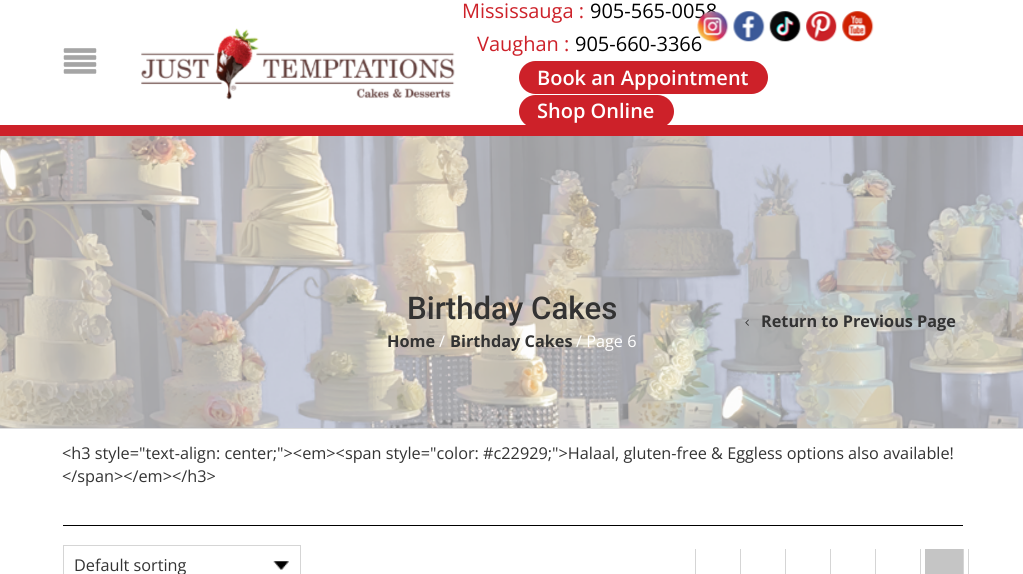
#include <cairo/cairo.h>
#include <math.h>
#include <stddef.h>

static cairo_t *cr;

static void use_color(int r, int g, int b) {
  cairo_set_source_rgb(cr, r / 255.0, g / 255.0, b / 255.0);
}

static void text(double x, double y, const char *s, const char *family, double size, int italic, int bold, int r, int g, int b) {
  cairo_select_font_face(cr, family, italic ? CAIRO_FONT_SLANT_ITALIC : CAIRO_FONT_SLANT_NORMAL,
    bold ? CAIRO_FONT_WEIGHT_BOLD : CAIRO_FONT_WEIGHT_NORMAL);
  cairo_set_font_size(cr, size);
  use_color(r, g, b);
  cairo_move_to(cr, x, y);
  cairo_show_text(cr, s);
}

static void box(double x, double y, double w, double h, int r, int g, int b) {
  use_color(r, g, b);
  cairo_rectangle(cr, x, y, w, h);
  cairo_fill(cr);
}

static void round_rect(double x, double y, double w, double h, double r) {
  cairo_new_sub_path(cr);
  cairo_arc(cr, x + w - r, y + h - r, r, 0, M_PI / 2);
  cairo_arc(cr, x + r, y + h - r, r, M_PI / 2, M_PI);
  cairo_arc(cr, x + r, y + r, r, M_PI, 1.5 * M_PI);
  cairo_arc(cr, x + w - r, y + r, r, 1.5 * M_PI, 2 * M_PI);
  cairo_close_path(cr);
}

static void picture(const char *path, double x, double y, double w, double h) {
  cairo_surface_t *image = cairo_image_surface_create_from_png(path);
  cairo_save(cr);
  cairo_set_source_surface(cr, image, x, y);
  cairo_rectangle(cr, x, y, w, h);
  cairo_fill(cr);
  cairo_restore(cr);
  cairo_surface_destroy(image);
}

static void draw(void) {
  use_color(255, 255, 255);
  cairo_paint(cr);
  picture("img_01.png", 63, 48, 34, 26);
  picture("img_02.png", 141, 28, 314, 72);
  picture("img_04.png", 733, 11, 32, 31);
  picture("img_05.png", 769, 11, 32, 31);
  picture("img_06.png", 806, 11, 31, 31);
  picture("img_07.png", 842, 11, 32, 31);
  use_color(205, 33, 41);
  round_rect(520.5, 62.5, 246, 30, 15);
  cairo_fill_preserve(cr);
  cairo_set_line_width(cr, 3);
  cairo_stroke(cr);
  round_rect(520.5, 96.5, 152, 30, 15);
  cairo_fill_preserve(cr);
  cairo_stroke(cr);
  box(0, 125, 1023, 11, 205, 33, 41);
  picture("img_08.png", 0, 136, 1023, 292);
  box(0, 428, 1023, 1, 221, 221, 221);
  picture("img_09.png", 745, 319, 4, 7);
  box(63, 525, 900, 1, 0, 0, 0);
  picture("img_10.png", 273, 561, 16, 9);
  cairo_rectangle(cr, 63.5, 545.5, 237, 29);
  use_color(213, 213, 213);
  cairo_set_line_width(cr, 1);
  cairo_stroke(cr);
  box(695, 549, 1, 25, 213, 213, 213);
  box(740, 549, 1, 25, 213, 213, 213);
  box(785, 549, 1, 25, 213, 213, 213);
  box(830, 549, 1, 25, 213, 213, 213);
  box(875, 549, 1, 25, 213, 213, 213);
  box(920, 549, 1, 25, 213, 213, 213);
  box(968, 549, 1, 25, 213, 213, 213);
  box(925, 549, 38, 25, 197, 197, 197);
  box(963, 549, 1, 25, 213, 213, 213);
  text(462, 18, "Mississauga :", "Open Sans", 20, 0, 0, 205, 33, 41);
  text(590, 18, "905-565-0058", "Open Sans", 20, 0, 0, 0, 0, 0);
  text(477, 51, "Vaughan :", "Open Sans", 20, 0, 0, 205, 33, 41);
  text(575, 51, "905-660-3366", "Open Sans", 20, 0, 0, 0, 0, 0);
  picture("img_03.png", 697, 11, 32, 31);
  text(537, 85, "Book an Appointment", "Open Sans SemiBold", 20, 0, 0, 255, 255, 255);
  text(537, 118, "Shop Online", "Open Sans SemiBold", 20, 0, 0, 255, 255, 255);
  text(407, 319, "Birthday Cakes", "Roboto Medium", 31.25, 0, 0, 51, 51, 51);
  text(761, 327, "Return to Previous Page", "Open Sans", 16.25, 0, 1, 51, 51, 51);
  text(387, 347, "Home", "Open Sans", 16.25, 0, 1, 51, 51, 51);
  text(439, 347, "/", "Open Sans", 16.25, 0, 0, 255, 255, 255);
  text(450, 347, "Birthday Cakes", "Open Sans", 16.25, 0, 1, 51, 51, 51);
  text(576, 347, "/ Page 6", "Open Sans", 16.25, 0, 0, 255, 255, 255);
  text(62, 459, "<h3 style=\"text-align: center;\"><em><span style=\"color: #c22929;\">Halaal, gluten-free & Eggless options also available!", "Open Sans", 16.25, 0, 0, 51, 51, 51);
  text(62, 482, "</span></em></h3>", "Open Sans", 16.25, 0, 0, 51, 51, 51);
  text(74, 571, "Default sorting", "Open Sans", 16.25, 0, 0, 51, 51, 51);
}

int main(void) {
  cairo_surface_t *surface = cairo_image_surface_create(CAIRO_FORMAT_RGB24, 1023, 574);
  cr = cairo_create(surface);
  cairo_font_options_t *options = cairo_font_options_create();
  cairo_font_options_set_hint_metrics(options, CAIRO_HINT_METRICS_OFF);
  cairo_font_options_set_hint_style(options, CAIRO_HINT_STYLE_NONE);
  cairo_set_font_options(cr, options);
  cairo_set_miter_limit(cr, 4);
  draw();
  cairo_surface_write_to_png(surface, "out.png");
  cairo_font_options_destroy(options);
  cairo_destroy(cr);
  cairo_surface_destroy(surface);
  return 0;
}
